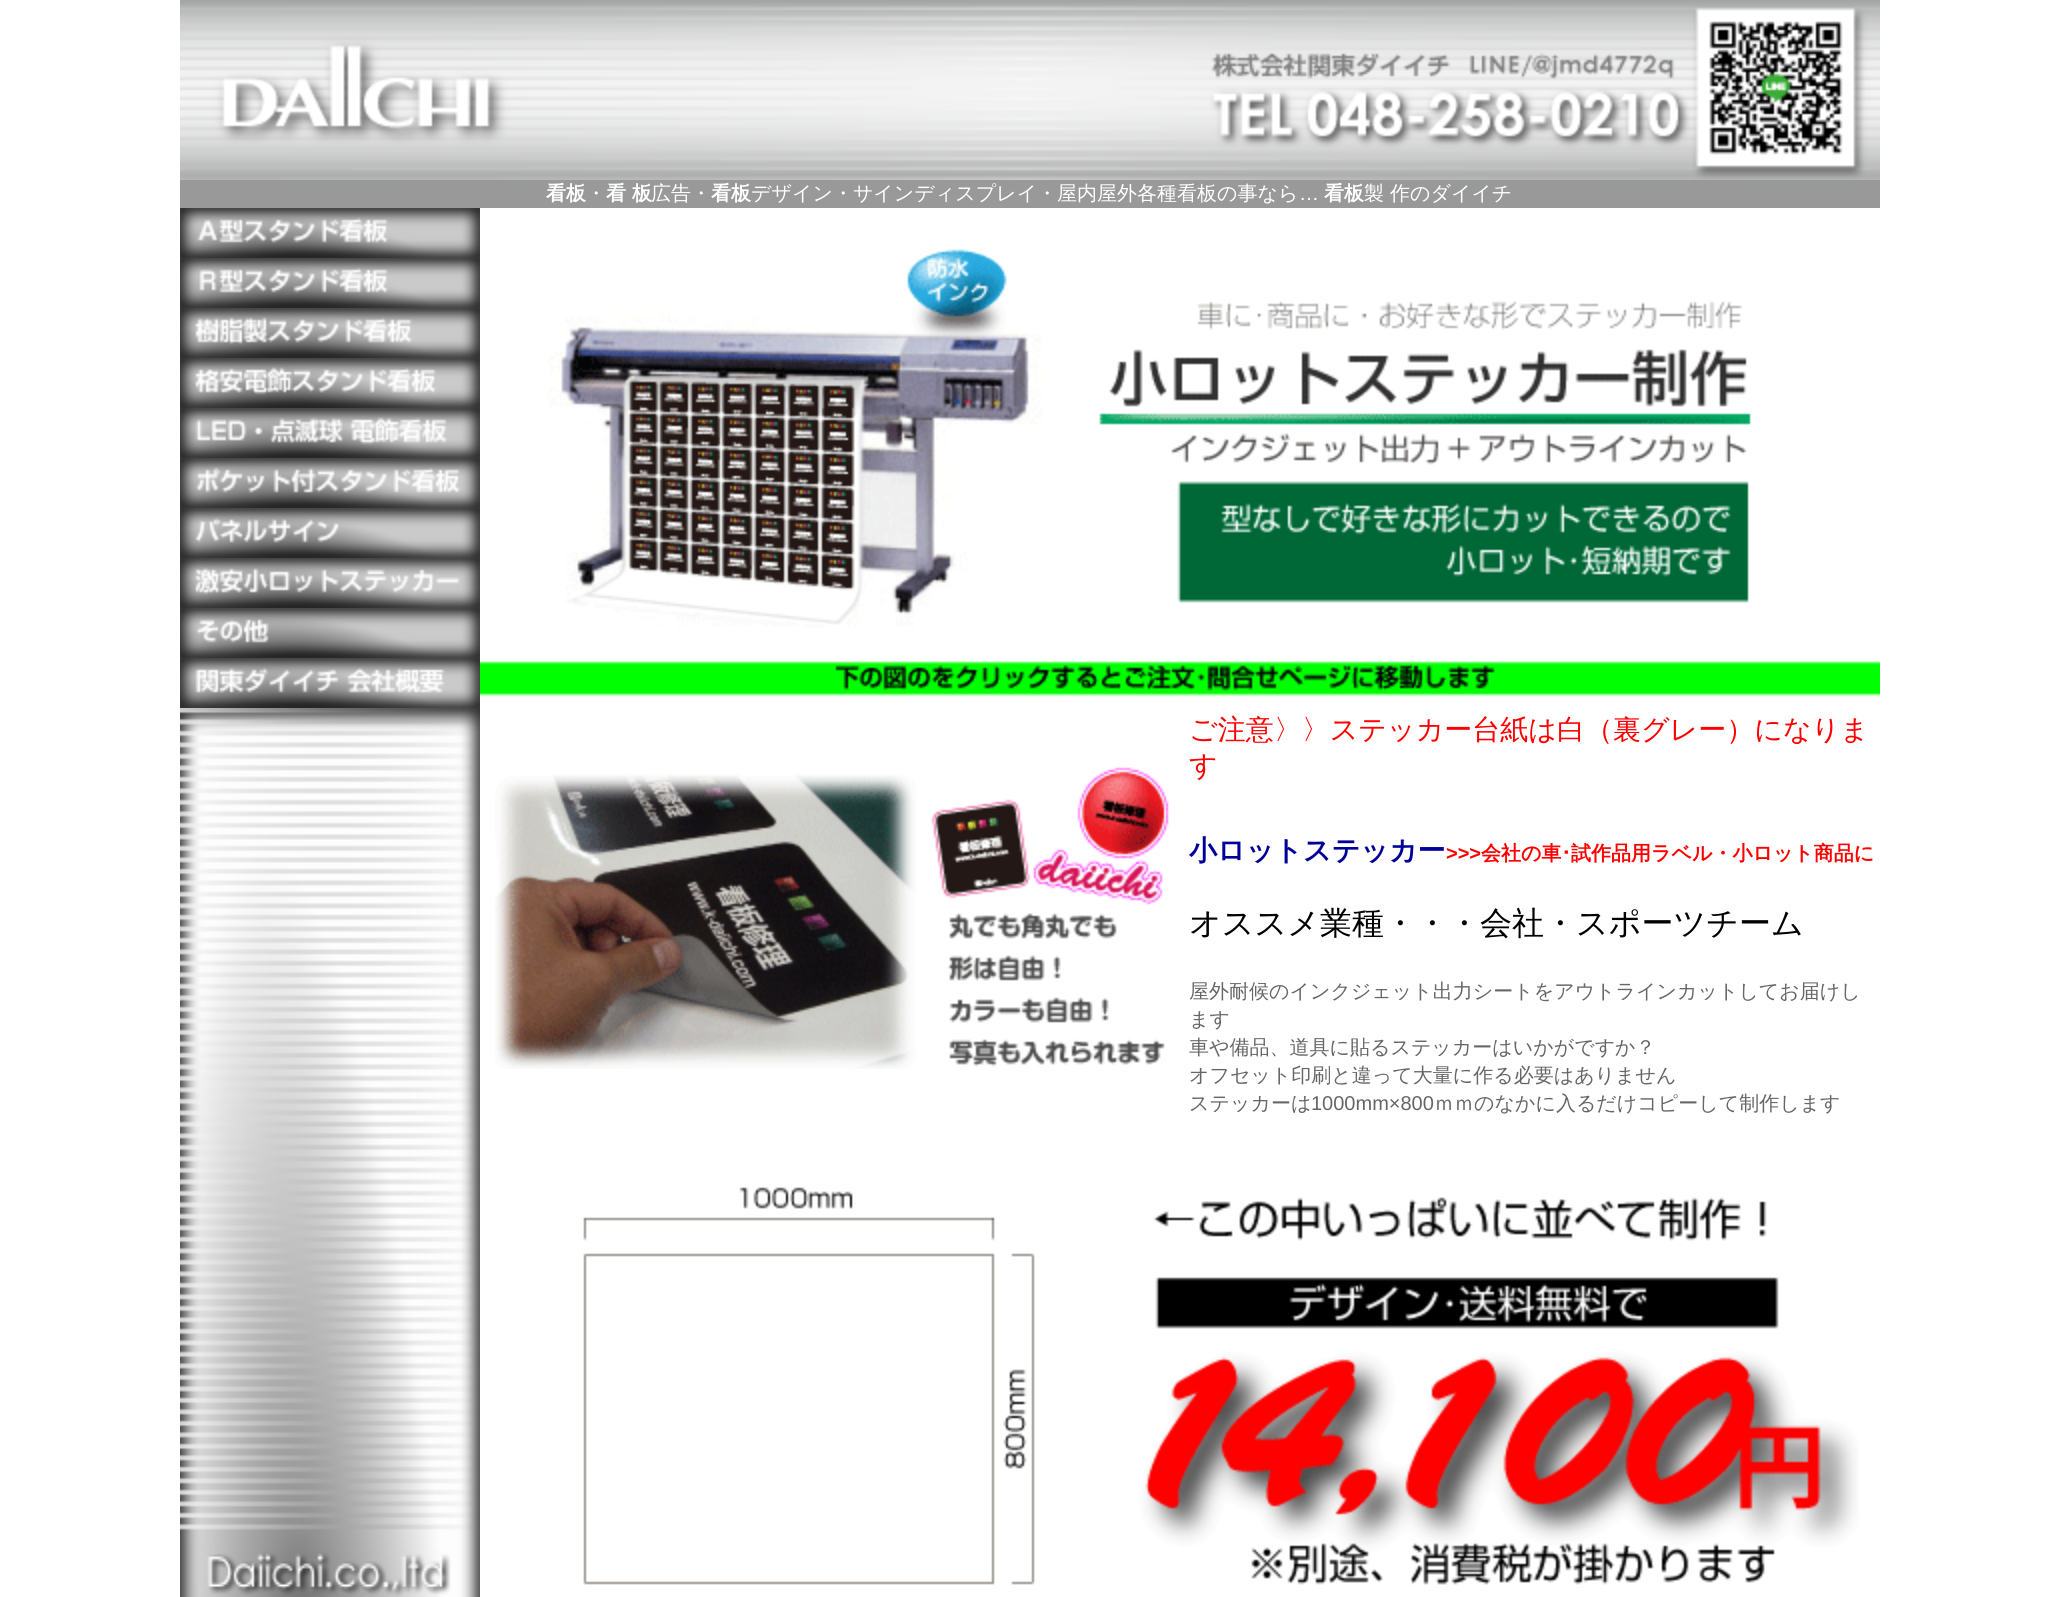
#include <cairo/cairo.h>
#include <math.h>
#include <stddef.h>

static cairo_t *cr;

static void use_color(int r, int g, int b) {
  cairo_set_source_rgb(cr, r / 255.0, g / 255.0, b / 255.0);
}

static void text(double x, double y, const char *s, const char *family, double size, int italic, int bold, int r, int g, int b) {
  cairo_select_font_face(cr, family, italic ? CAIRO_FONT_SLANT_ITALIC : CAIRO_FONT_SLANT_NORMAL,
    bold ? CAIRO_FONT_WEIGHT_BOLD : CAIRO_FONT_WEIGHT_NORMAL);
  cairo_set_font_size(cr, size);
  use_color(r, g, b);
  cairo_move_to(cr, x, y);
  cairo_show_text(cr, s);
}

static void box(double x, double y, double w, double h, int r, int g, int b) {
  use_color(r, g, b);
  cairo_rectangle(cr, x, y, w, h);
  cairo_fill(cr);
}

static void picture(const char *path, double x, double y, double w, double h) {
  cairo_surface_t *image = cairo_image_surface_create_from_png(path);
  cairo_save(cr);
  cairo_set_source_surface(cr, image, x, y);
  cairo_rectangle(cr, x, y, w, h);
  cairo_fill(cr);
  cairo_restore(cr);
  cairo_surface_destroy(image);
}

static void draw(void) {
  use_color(255, 255, 255);
  cairo_paint(cr);
  picture("img_01.png", 180, 0, 1700, 180);
  box(180, 180, 1700, 28, 153, 153, 153);
  picture("img_02.png", 180, 208, 300, 50);
  picture("img_03.png", 480, 249, 1400, 448);
  picture("img_04.png", 180, 258, 300, 50);
  picture("img_05.png", 180, 308, 300, 50);
  picture("img_06.png", 180, 358, 300, 50);
  picture("img_07.png", 180, 408, 300, 50);
  picture("img_08.png", 180, 458, 300, 50);
  picture("img_09.png", 180, 508, 300, 50);
  picture("img_10.png", 180, 558, 300, 50);
  picture("img_11.png", 180, 608, 300, 50);
  picture("img_12.png", 180, 658, 300, 50);
  picture("img_13.png", 180, 708, 300, 889);
  picture("img_14.png", 495, 767, 674, 302);
  picture("img_15.png", 583, 1187, 1276, 398);
  text(546, 200, "看板", "WenQuanYi Zen Hei", 20, 0, 1, 255, 255, 255);
  text(586, 200, "・", "WenQuanYi Zen Hei Medium", 20, 0, 0, 255, 255, 255);
  text(606, 200, "看 板", "WenQuanYi Zen Hei", 20, 0, 1, 255, 255, 255);
  text(651, 200, "広告・", "WenQuanYi Zen Hei Medium", 20, 0, 0, 255, 255, 255);
  text(711, 200, "看板", "WenQuanYi Zen Hei", 20, 0, 1, 255, 255, 255);
  text(751, 200, "デザイン・サインディスプレイ・屋内屋外各種看板の事なら", "WenQuanYi Zen Hei Medium", 20, 0, 0, 255, 255, 255);
  text(1324, 200, "看板", "WenQuanYi Zen Hei", 20, 0, 1, 255, 255, 255);
  text(1364, 200, "製 作のダイイチ", "WenQuanYi Zen Hei Medium", 20, 0, 0, 255, 255, 255);
  text(1299, 200, "…", "Liberation Sans", 20, 0, 0, 255, 255, 255);
  text(1189, 739, "ご注意〉〉ステッカー台紙は白（裏グレー）になりま", "WenQuanYi Zen Hei Medium", 28, 0, 0, 255, 0, 0);
  text(1189, 775, "す", "WenQuanYi Zen Hei Medium", 28, 0, 0, 255, 0, 0);
  text(1189, 860, "小ロットステッカー", "WenQuanYi Zen Hei", 28, 0, 1, 0, 0, 153);
  text(1446, 860, ">>>", "Liberation Sans", 20, 0, 1, 255, 0, 0);
  text(1481, 860, "会社の車", "WenQuanYi Zen Hei", 20, 0, 1, 255, 0, 0);
  text(1561, 860, "･", "IPAGothic", 20, 0, 1, 255, 0, 0);
  text(1571, 860, "試作品用ラベル・小ロット商品に", "WenQuanYi Zen Hei", 20, 0, 1, 255, 0, 0);
  text(1189, 934, "オススメ業種・・・会社・スポーツチーム", "WenQuanYi Zen Hei Medium", 32, 0, 0, 0, 0, 0);
  text(1189, 998, "屋外耐候のインクジェット出力シートをアウトラインカットしてお届けし", "WenQuanYi Zen Hei Medium", 20, 0, 0, 102, 102, 102);
  text(1189, 1026, "ます", "WenQuanYi Zen Hei Medium", 20, 0, 0, 102, 102, 102);
  text(1189, 1054, "車や備品、道具に貼るステッカーはいかがですか？", "WenQuanYi Zen Hei Medium", 20, 0, 0, 102, 102, 102);
  text(1189, 1082, "オフセット印刷と違って大量に作る必要はありません", "WenQuanYi Zen Hei Medium", 20, 0, 0, 102, 102, 102);
  text(1189, 1110, "ステッカーは", "WenQuanYi Zen Hei Medium", 20, 0, 0, 102, 102, 102);
  text(1311, 1110, "1000mm×800", "Liberation Sans", 20, 0, 0, 102, 102, 102);
  text(1434, 1110, "ｍｍのなかに入るだけコピーして制作します", "WenQuanYi Zen Hei Medium", 20, 0, 0, 102, 102, 102);
}

int main(void) {
  cairo_surface_t *surface = cairo_image_surface_create(CAIRO_FORMAT_RGB24, 2058, 1597);
  cr = cairo_create(surface);
  cairo_font_options_t *options = cairo_font_options_create();
  cairo_font_options_set_hint_metrics(options, CAIRO_HINT_METRICS_OFF);
  cairo_font_options_set_hint_style(options, CAIRO_HINT_STYLE_NONE);
  cairo_set_font_options(cr, options);
  cairo_set_miter_limit(cr, 4);
  draw();
  cairo_surface_write_to_png(surface, "out.png");
  cairo_font_options_destroy(options);
  cairo_destroy(cr);
  cairo_surface_destroy(surface);
  return 0;
}
